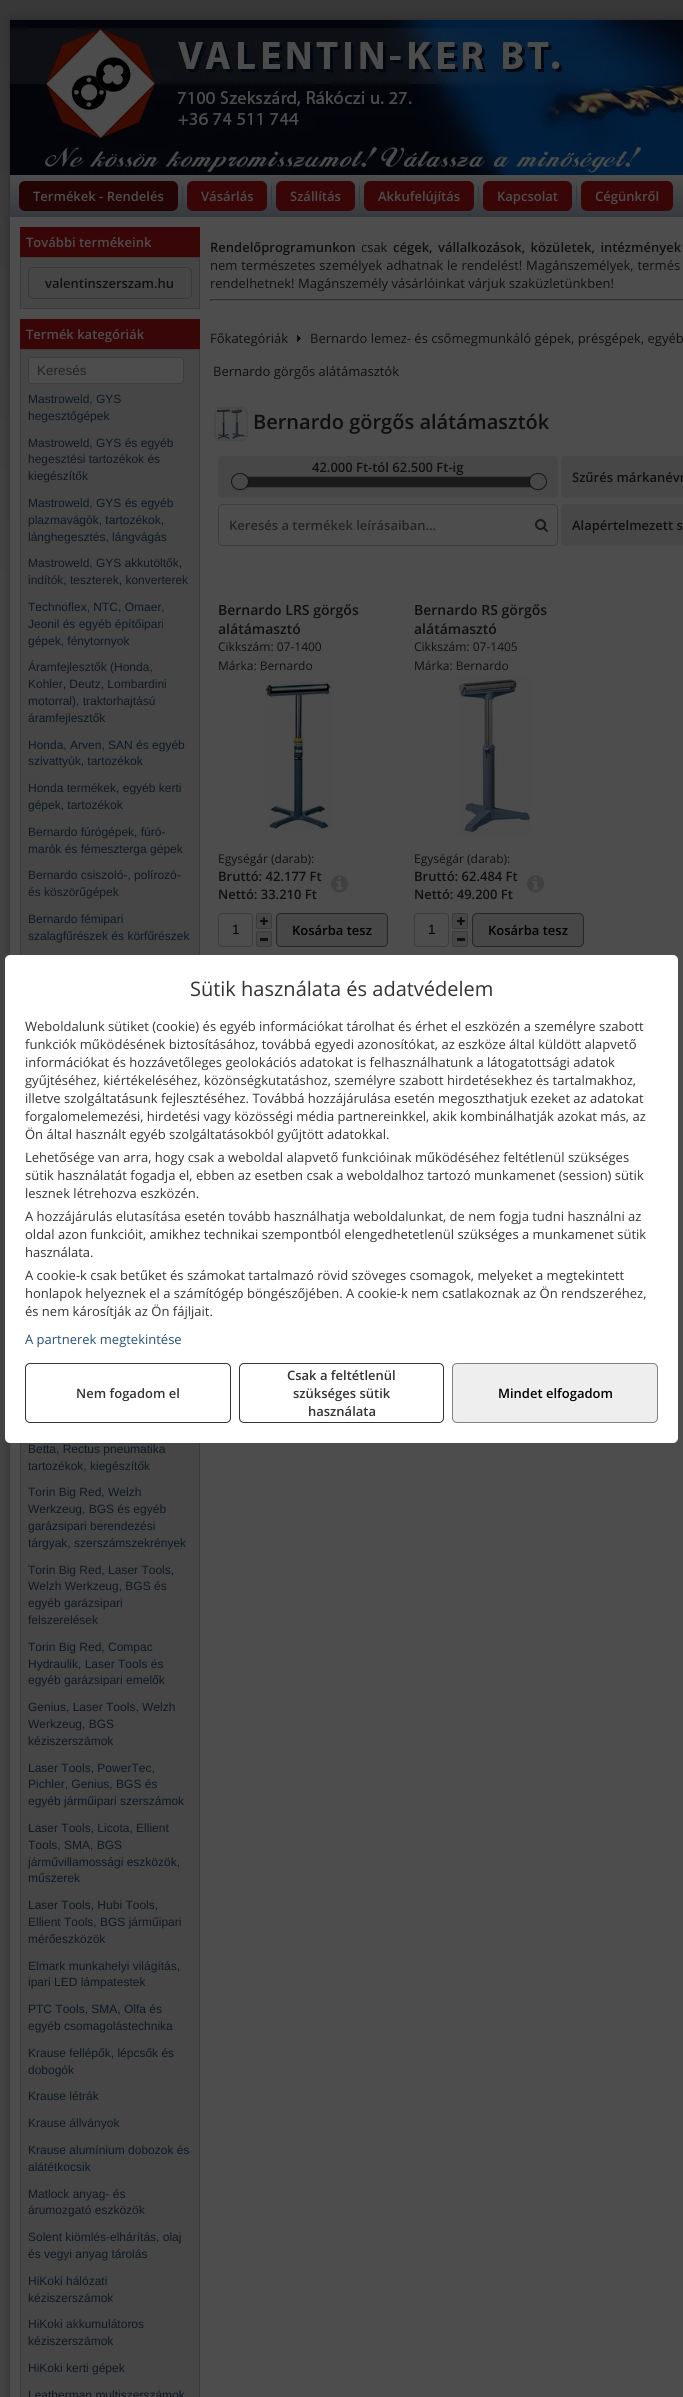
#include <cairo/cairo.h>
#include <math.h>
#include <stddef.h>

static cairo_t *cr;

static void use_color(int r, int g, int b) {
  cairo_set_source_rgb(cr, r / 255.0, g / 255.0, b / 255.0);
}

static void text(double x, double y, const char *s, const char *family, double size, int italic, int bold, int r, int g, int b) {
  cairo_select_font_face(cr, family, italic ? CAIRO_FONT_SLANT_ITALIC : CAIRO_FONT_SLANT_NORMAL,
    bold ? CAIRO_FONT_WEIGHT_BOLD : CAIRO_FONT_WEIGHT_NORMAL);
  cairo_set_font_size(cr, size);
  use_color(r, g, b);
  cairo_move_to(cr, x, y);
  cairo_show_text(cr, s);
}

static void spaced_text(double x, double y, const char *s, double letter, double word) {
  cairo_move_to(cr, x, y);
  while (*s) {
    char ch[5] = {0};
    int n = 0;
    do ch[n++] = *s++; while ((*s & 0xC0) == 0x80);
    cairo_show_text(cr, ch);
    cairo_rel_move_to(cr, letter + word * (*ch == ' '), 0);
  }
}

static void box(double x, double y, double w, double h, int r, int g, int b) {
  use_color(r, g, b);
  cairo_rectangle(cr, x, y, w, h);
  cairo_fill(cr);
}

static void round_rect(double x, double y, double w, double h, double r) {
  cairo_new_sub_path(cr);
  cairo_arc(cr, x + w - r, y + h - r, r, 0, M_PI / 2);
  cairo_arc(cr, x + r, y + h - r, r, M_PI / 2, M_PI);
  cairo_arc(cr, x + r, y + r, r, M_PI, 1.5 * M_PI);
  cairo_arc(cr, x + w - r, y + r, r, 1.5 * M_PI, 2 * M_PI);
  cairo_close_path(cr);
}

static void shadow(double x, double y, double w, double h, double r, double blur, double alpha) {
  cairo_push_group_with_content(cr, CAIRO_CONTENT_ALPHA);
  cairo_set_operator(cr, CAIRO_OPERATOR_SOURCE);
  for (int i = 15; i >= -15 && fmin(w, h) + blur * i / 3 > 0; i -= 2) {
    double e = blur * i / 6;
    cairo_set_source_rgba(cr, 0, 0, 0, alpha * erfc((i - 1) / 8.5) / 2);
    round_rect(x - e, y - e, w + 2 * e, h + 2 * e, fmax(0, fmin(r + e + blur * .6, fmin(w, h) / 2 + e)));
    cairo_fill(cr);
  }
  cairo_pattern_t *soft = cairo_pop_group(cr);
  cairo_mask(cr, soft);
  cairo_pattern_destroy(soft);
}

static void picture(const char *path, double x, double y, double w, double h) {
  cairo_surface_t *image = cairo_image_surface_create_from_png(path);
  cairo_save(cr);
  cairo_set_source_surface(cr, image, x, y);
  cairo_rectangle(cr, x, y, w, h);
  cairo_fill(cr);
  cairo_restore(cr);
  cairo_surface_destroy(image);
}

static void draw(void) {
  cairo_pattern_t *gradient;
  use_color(255, 255, 255);
  cairo_paint(cr);
  gradient = cairo_pattern_create_linear(341, 0, 342, 2397);
  cairo_pattern_add_color_stop_rgba(gradient, 0, 0.22, 0.22, 0.22, 1);
  cairo_pattern_add_color_stop_rgba(gradient, 0.25, 0.267, 0.267, 0.267, 1);
  cairo_set_source(cr, gradient);
  cairo_pattern_destroy(gradient);
  cairo_rectangle(cr, 0, 0, 683, 2397);
  cairo_fill(cr);
  use_color(0, 0, 0);
  shadow(10, 20, 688, 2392, 0, 5, 0.3);
  box(10, 217, 673, 2180, 77, 77, 77);
  picture("img_01.png", 10, 20, 673, 155);
  gradient = cairo_pattern_create_linear(510, 175, 510, 217);
  cairo_pattern_add_color_stop_rgba(gradient, 0, 0.302, 0.302, 0.302, 1);
  cairo_pattern_add_color_stop_rgba(gradient, 1, 0.212, 0.227, 0.243, 1);
  cairo_set_source(cr, gradient);
  cairo_pattern_destroy(gradient);
  cairo_rectangle(cr, 10, 175, 673, 42);
  cairo_fill(cr);
  box(182, 186, 1, 20, 52, 57, 63);
  use_color(35, 4, 5);
  round_rect(19, 181, 159, 30, 6);
  cairo_fill(cr);
  box(271, 186, 1, 20, 52, 57, 63);
  use_color(57, 6, 7);
  round_rect(187, 181, 80, 30, 6);
  cairo_fill(cr);
  box(359, 186, 1, 20, 52, 57, 63);
  use_color(57, 6, 7);
  round_rect(276, 181, 79, 30, 6);
  cairo_fill(cr);
  box(478, 186, 1, 20, 52, 57, 63);
  use_color(57, 6, 7);
  round_rect(364, 181, 110, 30, 6);
  cairo_fill(cr);
  box(576, 186, 1, 20, 52, 57, 63);
  use_color(57, 6, 7);
  round_rect(483, 181, 89, 30, 6);
  cairo_fill(cr);
  round_rect(581, 181, 92, 30, 6);
  cairo_fill(cr);
  box(20, 227, 180, 30, 57, 6, 7);
  use_color(70, 70, 70);
  cairo_rectangle(cr, 20.5, 257.5, 179, 51);
  cairo_fill_preserve(cr);
  use_color(59, 59, 59);
  cairo_set_line_width(cr, 1);
  cairo_stroke(cr);
  round_rect(28.5, 267.5, 163, 31, 4.5);
  use_color(56, 56, 56);
  cairo_stroke(cr);
  box(20, 319, 180, 30, 57, 6, 7);
  use_color(70, 70, 70);
  cairo_rectangle(cr, 20.5, 349.5, 179, 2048);
  cairo_fill_preserve(cr);
  use_color(59, 59, 59);
  cairo_stroke(cr);
  use_color(77, 77, 77);
  round_rect(28.5, 357.5, 155, 26, 2.5);
  cairo_fill_preserve(cr);
  use_color(61, 61, 61);
  cairo_stroke(cr);
  box(210, 299, 473, 1, 48, 48, 48);
  box(210, 300, 473, 1, 71, 71, 71);
  box(210, 299, 1, 2, 48, 48, 48);
  picture("img_02.png", 297, 335, 4, 7);
  picture("img_03.png", 217, 409, 28, 30);
  round_rect(215, 408, 32, 32, 5);
  use_color(71, 71, 71);
  cairo_set_line_width(cr, 2);
  cairo_stroke(cr);
  round_rect(218, 456, 340, 42, 5);
  cairo_fill(cr);
  cairo_rectangle(cr, 238.5, 476.5, 299, 11);
  use_color(59, 59, 59);
  cairo_set_line_width(cr, 1);
  cairo_stroke(cr);
  box(247, 477, 284, 10, 26, 26, 26);
  use_color(71, 71, 71);
  round_rect(231.5, 473.5, 17, 16, 8);
  cairo_fill_preserve(cr);
  use_color(20, 20, 20);
  cairo_stroke(cr);
  use_color(71, 71, 71);
  round_rect(529.5, 473.5, 17, 16, 8);
  cairo_fill_preserve(cr);
  use_color(20, 20, 20);
  cairo_stroke(cr);
  use_color(71, 71, 71);
  round_rect(561, 456, 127, 42, 5);
  cairo_fill(cr);
  round_rect(218.5, 504.5, 339, 41, 4.5);
  use_color(61, 61, 61);
  cairo_stroke(cr);
  picture("img_04.png", 535, 519, 13, 13);
  use_color(71, 71, 71);
  round_rect(561, 504, 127, 42, 5);
  cairo_fill(cr);
  picture("img_05.png", 265, 681, 69, 150);
  picture("img_06.png", 331, 875, 18, 18);
  round_rect(218.5, 913.5, 34, 33, 3.5);
  use_color(61, 61, 61);
  cairo_stroke(cr);
  use_color(70, 70, 70);
  round_rect(256.5, 913.5, 15, 15, 1.5);
  cairo_fill_preserve(cr);
  use_color(59, 59, 59);
  cairo_stroke(cr);
  picture("img_07.png", 260, 917, 8, 8);
  use_color(70, 70, 70);
  round_rect(256.5, 931.5, 15, 15, 1.5);
  cairo_fill_preserve(cr);
  use_color(59, 59, 59);
  cairo_stroke(cr);
  box(260, 938, 8, 3, 15, 15, 15);
  use_color(71, 71, 71);
  round_rect(276.5, 913.5, 111, 33, 4.5);
  cairo_fill_preserve(cr);
  use_color(38, 38, 38);
  cairo_stroke(cr);
  picture("img_08.png", 458, 676, 72, 160);
  picture("img_06.png", 527, 875, 18, 18);
  round_rect(414.5, 913.5, 34, 33, 3.5);
  use_color(61, 61, 61);
  cairo_stroke(cr);
  use_color(70, 70, 70);
  round_rect(452.5, 913.5, 15, 15, 1.5);
  cairo_fill_preserve(cr);
  use_color(59, 59, 59);
  cairo_stroke(cr);
  picture("img_07.png", 457, 917, 8, 8);
  use_color(70, 70, 70);
  round_rect(452.5, 931.5, 15, 15, 1.5);
  cairo_fill_preserve(cr);
  use_color(59, 59, 59);
  cairo_stroke(cr);
  box(457, 938, 8, 3, 15, 15, 15);
  use_color(71, 71, 71);
  round_rect(472.5, 913.5, 111, 33, 4.5);
  cairo_fill_preserve(cr);
  use_color(38, 38, 38);
  cairo_stroke(cr);
  use_color(255, 255, 255);
  round_rect(5, 955, 673, 488, 5);
  cairo_fill(cr);
  round_rect(25.5, 1363.5, 205, 59, 4.5);
  use_color(51, 51, 51);
  cairo_stroke(cr);
  round_rect(239.5, 1363.5, 204, 59, 4.5);
  cairo_stroke(cr);
  use_color(238, 238, 238);
  round_rect(452.5, 1363.5, 205, 59, 4.5);
  cairo_fill_preserve(cr);
  use_color(128, 128, 128);
  cairo_stroke(cr);
  text(33, 201, "Termékek - Rendelés", "Open Sans SemiBold", 13, 0, 0, 77, 77, 77);
  text(201, 201, "Vásárlás", "Open Sans SemiBold", 13, 0, 0, 77, 77, 77);
  text(290, 201, "Szállítás", "Open Sans SemiBold", 13, 0, 0, 77, 77, 77);
  text(378, 201, "Akkufelújítás", "Open Sans SemiBold", 13, 0, 0, 77, 77, 77);
  text(497, 201, "Kapcsolat", "Open Sans SemiBold", 13, 0, 0, 77, 77, 77);
  text(595, 201, "Cégünkről", "Open Sans SemiBold", 13, 0, 0, 77, 77, 77);
  text(26, 247, "További termékeink", "Open Sans SemiBold", 13, 0, 0, 77, 77, 77);
  text(45, 288, "valentinszerszam.hu", "Open Sans SemiBold", 13, 0, 0, 15, 15, 15);
  text(26, 339, "Termék kategóriák", "Open Sans SemiBold", 13, 0, 0, 77, 77, 77);
  text(37, 375, "Keresés", "Liberation Sans", 13.5, 0, 0, 35, 35, 35);
  text(28, 403, "Mastroweld, GYS", "Liberation Sans", 12, 0, 0, 12, 25, 32);
  text(28, 420, "hegesztőgépek", "Liberation Sans", 12, 0, 0, 12, 25, 32);
  text(28, 447, "Mastroweld, GYS és egyéb", "Liberation Sans", 12, 0, 0, 12, 25, 32);
  text(28, 463, "hegesztési tartozékok és", "Liberation Sans", 12, 0, 0, 12, 25, 32);
  text(28, 480, "kiegészítők", "Liberation Sans", 12, 0, 0, 12, 25, 32);
  text(28, 507, "Mastroweld, GYS és egyéb", "Liberation Sans", 12, 0, 0, 12, 25, 32);
  text(28, 524, "plazmavágók, tartozékok,", "Liberation Sans", 12, 0, 0, 12, 25, 32);
  text(28, 541, "lánghegesztés, lángvágás", "Liberation Sans", 12, 0, 0, 12, 25, 32);
  text(28, 567, "Mastroweld, GYS akkutöltők,", "Liberation Sans", 12, 0, 0, 12, 25, 32);
  text(28, 584, "indítók, teszterek, konverterek", "Liberation Sans", 12, 0, 0, 12, 25, 32);
  text(28, 611, "Technoflex, NTC, Omaer,", "Liberation Sans", 12, 0, 0, 12, 25, 32);
  text(28, 628, "Jeonil és egyéb építőipari", "Liberation Sans", 12, 0, 0, 12, 25, 32);
  text(28, 645, "gépek, fénytornyok", "Liberation Sans", 12, 0, 0, 12, 25, 32);
  text(28, 671, "Áramfejlesztők (Honda,", "Liberation Sans", 12, 0, 0, 12, 25, 32);
  text(28, 688, "Kohler, Deutz, Lombardini", "Liberation Sans", 12, 0, 0, 12, 25, 32);
  text(28, 705, "motorral), traktorhajtású", "Liberation Sans", 12, 0, 0, 12, 25, 32);
  text(28, 722, "áramfejlesztők", "Liberation Sans", 12, 0, 0, 12, 25, 32);
  text(28, 749, "Honda, Arven, SAN és egyéb", "Liberation Sans", 12, 0, 0, 12, 25, 32);
  text(28, 765, "szivattyúk, tartozékok", "Liberation Sans", 12, 0, 0, 12, 25, 32);
  text(28, 792, "Honda termékek, egyéb kerti", "Liberation Sans", 12, 0, 0, 12, 25, 32);
  text(28, 809, "gépek, tartozékok", "Liberation Sans", 12, 0, 0, 12, 25, 32);
  text(28, 836, "Bernardo fúrógépek, fúró-", "Liberation Sans", 12, 0, 0, 12, 25, 32);
  text(28, 853, "marók és fémeszterga gépek", "Liberation Sans", 12, 0, 0, 12, 25, 32);
  text(28, 879, "Bernardo csiszoló-, polírozó-", "Liberation Sans", 12, 0, 0, 12, 25, 32);
  text(28, 896, "és köszörűgépek", "Liberation Sans", 12, 0, 0, 12, 25, 32);
  text(28, 923, "Bernardo fémipari", "Liberation Sans", 12, 0, 0, 12, 25, 32);
  text(28, 940, "szalagfűrészek és körfűrészek", "Liberation Sans", 12, 0, 0, 12, 25, 32);
  text(28, 1453, "Betta, Rectus pneumatika", "Liberation Sans", 12, 0, 0, 12, 25, 32);
  text(28, 1470, "tartozékok, kiegészítők", "Liberation Sans", 12, 0, 0, 12, 25, 32);
  text(28, 1496, "Torin Big Red, Welzh", "Liberation Sans", 12, 0, 0, 12, 25, 32);
  text(28, 1513, "Werkzeug, BGS és egyéb", "Liberation Sans", 12, 0, 0, 12, 25, 32);
  text(28, 1530, "garázsipari berendezési", "Liberation Sans", 12, 0, 0, 12, 25, 32);
  text(28, 1547, "tárgyak, szerszámszekrények", "Liberation Sans", 12, 0, 0, 12, 25, 32);
  text(28, 1574, "Torin Big Red, Laser Tools,", "Liberation Sans", 12, 0, 0, 12, 25, 32);
  text(28, 1590, "Welzh Werkzeug, BGS és", "Liberation Sans", 12, 0, 0, 12, 25, 32);
  text(28, 1607, "egyéb garázsipari", "Liberation Sans", 12, 0, 0, 12, 25, 32);
  text(28, 1624, "felszerelések", "Liberation Sans", 12, 0, 0, 12, 25, 32);
  text(28, 1651, "Torin Big Red, Compac", "Liberation Sans", 12, 0, 0, 12, 25, 32);
  text(28, 1668, "Hydraulik, Laser Tools és", "Liberation Sans", 12, 0, 0, 12, 25, 32);
  text(28, 1684, "egyéb garázsipari emelők", "Liberation Sans", 12, 0, 0, 12, 25, 32);
  text(28, 1711, "Genius, Laser Tools, Welzh", "Liberation Sans", 12, 0, 0, 12, 25, 32);
  text(28, 1728, "Werkzeug, BGS", "Liberation Sans", 12, 0, 0, 12, 25, 32);
  text(28, 1745, "kéziszerszámok", "Liberation Sans", 12, 0, 0, 12, 25, 32);
  text(28, 1772, "Laser Tools, PowerTec,", "Liberation Sans", 12, 0, 0, 12, 25, 32);
  text(28, 1788, "Pichler, Genius, BGS és", "Liberation Sans", 12, 0, 0, 12, 25, 32);
  text(28, 1805, "egyéb járműipari szerszámok", "Liberation Sans", 12, 0, 0, 12, 25, 32);
  text(28, 1832, "Laser Tools, Licota, Ellient", "Liberation Sans", 12, 0, 0, 12, 25, 32);
  text(28, 1849, "Tools, SMA, BGS", "Liberation Sans", 12, 0, 0, 12, 25, 32);
  text(28, 1866, "járművillamossági eszközök,", "Liberation Sans", 12, 0, 0, 12, 25, 32);
  text(28, 1882, "műszerek", "Liberation Sans", 12, 0, 0, 12, 25, 32);
  text(28, 1909, "Laser Tools, Hubi Tools,", "Liberation Sans", 12, 0, 0, 12, 25, 32);
  text(28, 1926, "Ellient Tools, BGS járműipari", "Liberation Sans", 12, 0, 0, 12, 25, 32);
  text(28, 1943, "mérőeszközök", "Liberation Sans", 12, 0, 0, 12, 25, 32);
  text(28, 1970, "Elmark munkahelyi világítás,", "Liberation Sans", 12, 0, 0, 12, 25, 32);
  text(28, 1986, "ipari LED lámpatestek", "Liberation Sans", 12, 0, 0, 12, 25, 32);
  text(28, 2013, "PTC Tools, SMA, Olfa és", "Liberation Sans", 12, 0, 0, 12, 25, 32);
  text(28, 2030, "egyéb csomagolástechnika", "Liberation Sans", 12, 0, 0, 12, 25, 32);
  text(28, 2057, "Krause fellépők, lépcsők és", "Liberation Sans", 12, 0, 0, 12, 25, 32);
  text(28, 2074, "dobogók", "Liberation Sans", 12, 0, 0, 12, 25, 32);
  text(28, 2100, "Krause létrák", "Liberation Sans", 12, 0, 0, 12, 25, 32);
  text(28, 2127, "Krause állványok", "Liberation Sans", 12, 0, 0, 12, 25, 32);
  text(28, 2154, "Krause alumínium dobozok és", "Liberation Sans", 12, 0, 0, 12, 25, 32);
  text(28, 2171, "alátétkocsik", "Liberation Sans", 12, 0, 0, 12, 25, 32);
  text(28, 2198, "Matlock anyag- és", "Liberation Sans", 12, 0, 0, 12, 25, 32);
  text(28, 2214, "árumozgató eszközök", "Liberation Sans", 12, 0, 0, 12, 25, 32);
  text(28, 2241, "Solent kiömlés-elhárítás, olaj", "Liberation Sans", 12, 0, 0, 12, 25, 32);
  text(28, 2258, "és vegyi anyag tárolás", "Liberation Sans", 12, 0, 0, 12, 25, 32);
  text(28, 2285, "HiKoki hálózati", "Liberation Sans", 12, 0, 0, 12, 25, 32);
  text(28, 2302, "kéziszerszámok", "Liberation Sans", 12, 0, 0, 12, 25, 32);
  text(28, 2328, "HiKoki akkumulátoros", "Liberation Sans", 12, 0, 0, 12, 25, 32);
  text(28, 2345, "kéziszerszámok", "Liberation Sans", 12, 0, 0, 12, 25, 32);
  text(28, 2372, "HiKoki kerti gépek", "Liberation Sans", 12, 0, 0, 12, 25, 32);
  text(28, 2399, "Leatherman multiszerszámok", "Liberation Sans", 12, 0, 0, 12, 25, 32);
  text(210, 252, "Rendelőprogramunkon", "Open Sans SemiBold", 13, 0, 0, 15, 15, 15);
  text(361, 252, "csak", "Open Sans", 13, 0, 0, 15, 15, 15);
  cairo_select_font_face(cr, "Open Sans SemiBold", CAIRO_FONT_SLANT_NORMAL, CAIRO_FONT_WEIGHT_NORMAL);
  spaced_text(393, 252, "cégek, vállalkozások, közületek, intézmények", 0, 2);
  cairo_select_font_face(cr, "Open Sans", CAIRO_FONT_SLANT_NORMAL, CAIRO_FONT_WEIGHT_NORMAL);
  spaced_text(210, 270, "nem természetes személyek adhatnak le rendelést! Magánszemélyek, termés", 0, 0.5);
  text(210, 288, "rendelhetnek! Magánszemély vásárlóinkat várjuk szaküzletünkben!", "Open Sans", 13, 0, 0, 15, 15, 15);
  text(210, 343, "Főkategóriák", "Open Sans", 13, 0, 0, 15, 15, 15);
  text(310, 343, "Bernardo lemez- és csőmegmunkáló gépek, présgépek, egyéb", "Open Sans", 13, 0, 0, 15, 15, 15);
  text(213, 376, "Bernardo görgős alátámasztók", "Open Sans", 13, 0, 0, 15, 15, 15);
  text(253, 429, "Bernardo görgős alátámasztók", "Open Sans SemiBold", 20, 0, 0, 15, 15, 15);
  text(312, 472, "42.000 Ft-tól 62.500 Ft-ig", "Open Sans SemiBold", 13, 0, 0, 15, 15, 15);
  text(572, 482, "Szűrés márkanévr", "Open Sans SemiBold", 13, 0, 0, 15, 15, 15);
  text(229, 530, "Keresés a termékek leírásaiban...", "Open Sans SemiBold", 13, 0, 0, 35, 35, 35);
  text(572, 530, "Alapértelmezett s", "Open Sans SemiBold", 13, 0, 0, 15, 15, 15);
  text(218, 615, "Bernardo LRS görgős", "Open Sans SemiBold", 14, 0, 0, 15, 15, 15);
  text(218, 634, "alátámasztó", "Open Sans SemiBold", 14, 0, 0, 15, 15, 15);
  text(218, 651, "Cikkszám: 07-1400", "Open Sans", 12, 0, 0, 15, 15, 15);
  text(218, 670, "Márka: Bernardo", "Open Sans", 12, 0, 0, 15, 15, 15);
  text(218, 863, "Egységár (darab):", "Open Sans", 12, 0, 0, 15, 15, 15);
  text(218, 881, "Bruttó: 42.177 Ft", "Open Sans SemiBold", 13, 0, 0, 15, 15, 15);
  text(218, 899, "Nettó: 33.210 Ft", "Open Sans SemiBold", 13, 0, 0, 15, 15, 15);
  text(232, 934, "1", "Liberation Sans", 13.5, 0, 0, 0, 0, 0);
  text(292, 935, "Kosárba tesz", "Open Sans SemiBold", 13, 0, 0, 0, 0, 0);
  text(414, 615, "Bernardo RS görgős", "Open Sans SemiBold", 14, 0, 0, 15, 15, 15);
  text(414, 634, "alátámasztó", "Open Sans SemiBold", 14, 0, 0, 15, 15, 15);
  text(414, 651, "Cikkszám: 07-1405", "Open Sans", 12, 0, 0, 15, 15, 15);
  text(414, 670, "Márka: Bernardo", "Open Sans", 12, 0, 0, 15, 15, 15);
  text(414, 863, "Egységár (darab):", "Open Sans", 12, 0, 0, 15, 15, 15);
  text(414, 881, "Bruttó: 62.484 Ft", "Open Sans SemiBold", 13, 0, 0, 15, 15, 15);
  text(414, 899, "Nettó: 49.200 Ft", "Open Sans SemiBold", 13, 0, 0, 15, 15, 15);
  text(428, 934, "1", "Liberation Sans", 13.5, 0, 0, 0, 0, 0);
  text(488, 935, "Kosárba tesz", "Open Sans SemiBold", 13, 0, 0, 0, 0, 0);
  text(190, 996, "Sütik használata és adatvédelem", "Open Sans", 20, 0, 0, 51, 51, 51);
  text(25, 1031, "Weboldalunk sütiket (cookie) és egyéb információkat tárolhat és érhet el eszközén a személyre szabott", "Open Sans", 13, 0, 0, 51, 51, 51);
  text(25, 1049, "funkciók működésének biztosításához, továbbá egyedi azonosítókat, az eszköze által küldött alapvető", "Open Sans", 13, 0, 0, 51, 51, 51);
  text(25, 1067, "információkat és hozzávetőleges geolokációs adatokat is felhasználhatunk a látogatottsági adatok", "Open Sans", 13, 0, 0, 51, 51, 51);
  text(25, 1085, "gyűjtéséhez, kiértékeléséhez, közönségkutatáshoz, személyre szabott hirdetésekhez és tartalmakhoz,", "Open Sans", 13, 0, 0, 51, 51, 51);
  text(25, 1103, "illetve szolgáltatásunk fejlesztéséhez. Továbbá hozzájárulása esetén megoszthatjuk ezeket az adatokat", "Open Sans", 13, 0, 0, 51, 51, 51);
  text(25, 1121, "forgalomelemezési, hirdetési vagy közösségi média partnereinkkel, akik kombinálhatják azokat más, az", "Open Sans", 13, 0, 0, 51, 51, 51);
  text(25, 1139, "Ön által használt egyéb szolgáltatásokból gyűjtött adatokkal.", "Open Sans", 13, 0, 0, 51, 51, 51);
  text(25, 1162, "Lehetősége van arra, hogy csak a weboldal alapvető funkcióinak működéséhez feltétlenül szükséges", "Open Sans", 13, 0, 0, 51, 51, 51);
  text(25, 1180, "sütik használatát fogadja el, ebben az esetben csak a weboldalhoz tartozó munkamenet (session) sütik", "Open Sans", 13, 0, 0, 51, 51, 51);
  text(25, 1198, "lesznek létrehozva eszközén.", "Open Sans", 13, 0, 0, 51, 51, 51);
  text(25, 1221, "A hozzájárulás elutasítása esetén tovább használhatja weboldalunkat, de nem fogja tudni használni az", "Open Sans", 13, 0, 0, 51, 51, 51);
  text(25, 1239, "oldal azon funkcióit, amikhez technikai szempontból elengedhetetlenül szükséges a munkamenet sütik", "Open Sans", 13, 0, 0, 51, 51, 51);
  text(25, 1257, "használata.", "Open Sans", 13, 0, 0, 51, 51, 51);
  text(25, 1280, "A cookie-k csak betűket és számokat tartalmazó rövid szöveges csomagok, melyeket a megtekintett", "Open Sans", 13, 0, 0, 51, 51, 51);
  text(25, 1298, "honlapok helyeznek el a számítógép böngészőjében. A cookie-k nem csatlakoznak az Ön rendszeréhez,", "Open Sans", 13, 0, 0, 51, 51, 51);
  text(25, 1316, "és nem károsítják az Ön fájljait.", "Open Sans", 13, 0, 0, 51, 51, 51);
  text(25, 1344, "A partnerek megtekintése", "Open Sans", 13, 0, 0, 36, 80, 118);
  text(76, 1398, "Nem fogadom el", "Open Sans SemiBold", 13, 0, 0, 51, 51, 51);
  text(287, 1380, "Csak a feltétlenül", "Open Sans SemiBold", 13, 0, 0, 51, 51, 51);
  text(293, 1398, "szükséges sütik", "Open Sans SemiBold", 13, 0, 0, 51, 51, 51);
  text(308, 1416, "használata", "Open Sans SemiBold", 13, 0, 0, 51, 51, 51);
  text(498, 1398, "Mindet elfogadom", "Open Sans SemiBold", 13, 0, 0, 0, 0, 0);
}

int main(void) {
  cairo_surface_t *surface = cairo_image_surface_create(CAIRO_FORMAT_RGB24, 683, 2397);
  cr = cairo_create(surface);
  cairo_font_options_t *options = cairo_font_options_create();
  cairo_font_options_set_hint_metrics(options, CAIRO_HINT_METRICS_OFF);
  cairo_font_options_set_hint_style(options, CAIRO_HINT_STYLE_NONE);
  cairo_set_font_options(cr, options);
  cairo_set_miter_limit(cr, 4);
  draw();
  cairo_surface_write_to_png(surface, "out.png");
  cairo_font_options_destroy(options);
  cairo_destroy(cr);
  cairo_surface_destroy(surface);
  return 0;
}
